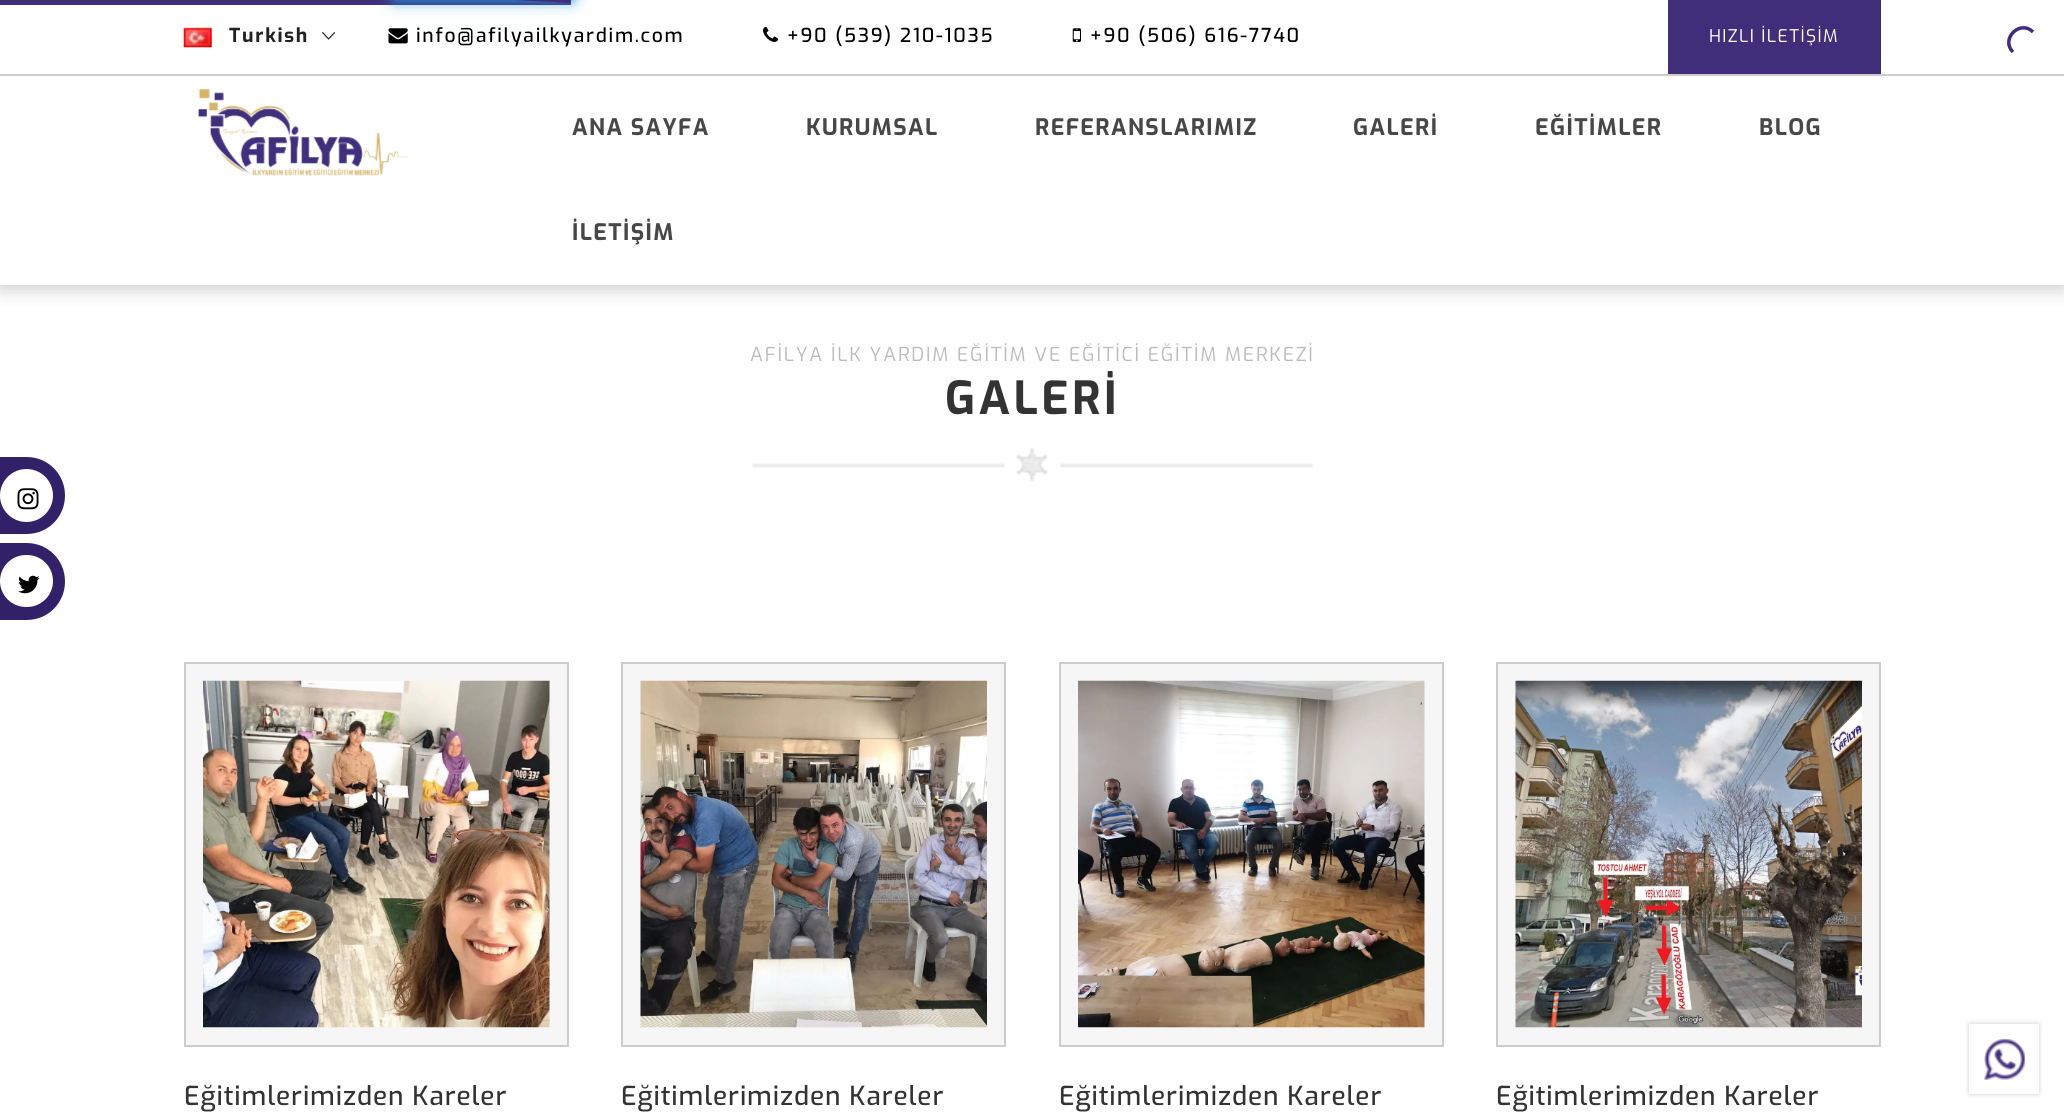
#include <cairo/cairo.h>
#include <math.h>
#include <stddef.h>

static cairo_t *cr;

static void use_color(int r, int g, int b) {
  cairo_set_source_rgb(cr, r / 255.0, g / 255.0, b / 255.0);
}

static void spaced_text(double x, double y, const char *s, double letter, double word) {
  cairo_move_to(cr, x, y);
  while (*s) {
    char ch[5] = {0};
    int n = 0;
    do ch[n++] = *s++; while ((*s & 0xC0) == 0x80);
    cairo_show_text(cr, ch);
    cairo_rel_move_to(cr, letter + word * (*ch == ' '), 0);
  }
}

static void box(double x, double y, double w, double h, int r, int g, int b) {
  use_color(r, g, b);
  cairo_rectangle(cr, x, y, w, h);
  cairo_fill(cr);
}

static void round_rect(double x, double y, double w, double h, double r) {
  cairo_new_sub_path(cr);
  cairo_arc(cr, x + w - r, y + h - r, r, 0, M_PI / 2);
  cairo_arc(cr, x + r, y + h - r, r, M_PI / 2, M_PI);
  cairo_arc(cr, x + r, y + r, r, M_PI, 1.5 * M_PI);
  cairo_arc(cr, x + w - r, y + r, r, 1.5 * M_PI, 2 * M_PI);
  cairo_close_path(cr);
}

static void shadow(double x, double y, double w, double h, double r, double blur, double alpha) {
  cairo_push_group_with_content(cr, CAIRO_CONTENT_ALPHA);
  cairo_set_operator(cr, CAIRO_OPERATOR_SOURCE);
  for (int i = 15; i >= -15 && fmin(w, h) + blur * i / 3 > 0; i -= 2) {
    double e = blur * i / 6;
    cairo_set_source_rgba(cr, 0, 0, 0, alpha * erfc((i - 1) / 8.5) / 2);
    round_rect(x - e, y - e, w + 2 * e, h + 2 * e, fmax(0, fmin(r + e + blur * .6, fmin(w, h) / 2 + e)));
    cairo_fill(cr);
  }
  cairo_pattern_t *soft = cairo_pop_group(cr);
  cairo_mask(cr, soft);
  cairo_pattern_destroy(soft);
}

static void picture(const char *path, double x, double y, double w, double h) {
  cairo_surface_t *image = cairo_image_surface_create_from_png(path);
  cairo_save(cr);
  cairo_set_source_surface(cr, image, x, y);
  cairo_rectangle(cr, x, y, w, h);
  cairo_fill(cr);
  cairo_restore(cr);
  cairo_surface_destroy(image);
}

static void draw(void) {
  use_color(255, 255, 255);
  cairo_paint(cr);
  cairo_save(cr);
  cairo_rectangle(cr, 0, 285, 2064, 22);
  cairo_clip(cr);
  use_color(204, 204, 204);
  shadow(0, 4, 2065, 285, 0, 9, 1);
  cairo_restore(cr);
  box(0, 0, 571, 5, 64, 46, 123);
  cairo_save(cr);
  cairo_set_fill_rule(cr, CAIRO_FILL_RULE_EVEN_ODD);
  cairo_new_path(cr);
  cairo_move_to(cr, 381, 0);
  cairo_line_to(cr, 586, 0);
  cairo_line_to(cr, 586, 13);
  cairo_line_to(cr, 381, 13);
  cairo_close_path(cr);
  cairo_move_to(cr, 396, -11.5);
  cairo_line_to(cr, 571, -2.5);
  cairo_line_to(cr, 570.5, 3);
  cairo_line_to(cr, 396, -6.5);
  cairo_close_path(cr);
  cairo_clip(cr);
  use_color(34, 153, 221);
  shadow(396, -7, 175, 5, 0, 4.5, 1);
  cairo_restore(cr);
  cairo_save(cr);
  cairo_set_fill_rule(cr, CAIRO_FILL_RULE_EVEN_ODD);
  cairo_new_path(cr);
  cairo_move_to(cr, 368, 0);
  cairo_line_to(cr, 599, 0);
  cairo_line_to(cr, 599, 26);
  cairo_line_to(cr, 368, 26);
  cairo_close_path(cr);
  cairo_move_to(cr, 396, -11.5);
  cairo_line_to(cr, 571, -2.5);
  cairo_line_to(cr, 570.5, 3);
  cairo_line_to(cr, 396, -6.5);
  cairo_close_path(cr);
  cairo_clip(cr);
  use_color(34, 153, 221);
  shadow(396, -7, 175, 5, 0, 9, 1);
  cairo_restore(cr);
  cairo_new_path(cr);
  cairo_move_to(cr, 2013, 52);
  cairo_curve_to(cr, 2000, 39, 2020, 19, 2033, 32);
  cairo_set_line_width(cr, 3.5);
  cairo_stroke(cr);
  box(0, 74, 2064, 2, 204, 204, 204);
  picture("img_01.png", 183, 27, 29, 21);
  picture("img_02.png", 322, 32, 13, 8);
  picture("img_03.png", 388, 28, 20, 16);
  picture("img_04.png", 763, 26, 16, 16);
  picture("img_05.png", 1072, 28, 9, 14);
  box(1668, 0, 213, 74, 64, 46, 123);
  picture("img_06.png", 197, 89, 212, 87);
  picture("img_07.png", 752, 448, 561, 34);
  use_color(50, 33, 105);
  cairo_new_path(cr);
  cairo_move_to(cr, -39, 457);
  cairo_line_to(cr, 26.5, 457);
  cairo_curve_to(cr, 48, 457, 65, 474, 65, 495.5);
  cairo_curve_to(cr, 65, 517, 48, 534, 26.5, 534);
  cairo_line_to(cr, -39, 534);
  cairo_close_path(cr);
  cairo_fill(cr);
  use_color(255, 255, 255);
  cairo_arc(cr, 26.5, 495.5, 26.5, 0, 2 * M_PI);
  cairo_fill(cr);
  picture("img_08.png", 17, 488, 22, 22);
  use_color(50, 33, 105);
  cairo_new_path(cr);
  cairo_move_to(cr, -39, 543);
  cairo_line_to(cr, 26.5, 543);
  cairo_curve_to(cr, 48, 543, 65, 560, 65, 581.5);
  cairo_curve_to(cr, 65, 603, 48, 620, 26.5, 620);
  cairo_line_to(cr, -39, 620);
  cairo_close_path(cr);
  cairo_fill(cr);
  use_color(255, 255, 255);
  round_rect(0, 555, 53, 52, 26);
  cairo_fill(cr);
  picture("img_09.png", 18, 575, 22, 19);
  use_color(246, 246, 246);
  cairo_rectangle(cr, 185, 663, 383, 383);
  cairo_fill_preserve(cr);
  use_color(204, 204, 204);
  cairo_set_line_width(cr, 2);
  cairo_stroke(cr);
  picture("img_10.png", 203, 680, 347, 348);
  use_color(246, 246, 246);
  cairo_rectangle(cr, 622, 663, 383, 383);
  cairo_fill_preserve(cr);
  use_color(204, 204, 204);
  cairo_stroke(cr);
  picture("img_11.png", 640, 680, 347, 348);
  use_color(246, 246, 246);
  cairo_rectangle(cr, 1060, 663, 383, 383);
  cairo_fill_preserve(cr);
  use_color(204, 204, 204);
  cairo_stroke(cr);
  picture("img_12.png", 1078, 680, 347, 348);
  use_color(246, 246, 246);
  cairo_rectangle(cr, 1497, 663, 383, 383);
  cairo_fill_preserve(cr);
  use_color(204, 204, 204);
  cairo_stroke(cr);
  picture("img_13.png", 1515, 680, 347, 348);
  cairo_save(cr);
  cairo_set_fill_rule(cr, CAIRO_FILL_RULE_EVEN_ODD);
  cairo_new_path(cr);
  cairo_move_to(cr, 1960, 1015);
  cairo_line_to(cr, 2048, 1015);
  cairo_line_to(cr, 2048, 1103);
  cairo_line_to(cr, 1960, 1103);
  cairo_close_path(cr);
  cairo_move_to(cr, 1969, 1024);
  cairo_line_to(cr, 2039, 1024);
  cairo_line_to(cr, 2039, 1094);
  cairo_line_to(cr, 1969, 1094);
  cairo_close_path(cr);
  cairo_clip(cr);
  use_color(0, 0, 0);
  shadow(1969, 1024, 70, 70, 0, 2.5, 0.2);
  cairo_restore(cr);
  picture("img_14.png", 1984, 1039, 41, 41);
  cairo_select_font_face(cr, "Exo", CAIRO_FONT_SLANT_NORMAL, CAIRO_FONT_WEIGHT_BOLD);
  cairo_set_font_size(cr, 19.25);
  use_color(34, 34, 34);
  spaced_text(229, 42, "Turkish", 1.75, 0);
  cairo_select_font_face(cr, "Exo Medium", CAIRO_FONT_SLANT_NORMAL, CAIRO_FONT_WEIGHT_NORMAL);
  use_color(0, 0, 0);
  spaced_text(416, 42, "info@afilyailkyardim.com", 1.75, 0);
  spaced_text(787, 42, "+90 (539) 210-1035", 1.75, 0);
  spaced_text(1090, 42, "+90 (506) 616-7740", 1.75, 0);
  cairo_select_font_face(cr, "Exo", CAIRO_FONT_SLANT_NORMAL, CAIRO_FONT_WEIGHT_NORMAL);
  cairo_set_font_size(cr, 17.5);
  use_color(255, 255, 255);
  spaced_text(1709, 42, "HIZLI İLETİŞİM", 1.4, 0);
  cairo_select_font_face(cr, "Exo", CAIRO_FONT_SLANT_NORMAL, CAIRO_FONT_WEIGHT_BOLD);
  cairo_set_font_size(cr, 22.75);
  use_color(71, 71, 71);
  spaced_text(572, 135, "ANA SAYFA", 1.4, 0);
  spaced_text(806, 135, "KURUMSAL", 1.4, 0);
  spaced_text(1035, 135, "REFERANSLARIMIZ", 1.4, 0);
  spaced_text(1353, 135, "GALERİ", 1.4, 0);
  spaced_text(1535, 135, "EĞİTİMLER", 1.4, 0);
  spaced_text(1759, 135, "BLOG", 1.4, 0);
  spaced_text(572, 240, "İLETİŞİM", 1.4, 0);
  cairo_select_font_face(cr, "Exo", CAIRO_FONT_SLANT_NORMAL, CAIRO_FONT_WEIGHT_NORMAL);
  cairo_set_font_size(cr, 19.25);
  use_color(188, 188, 188);
  spaced_text(750, 361, "AFİLYA İLK YARDIM EĞİTİM VE EĞİTİCİ EĞİTİM MERKEZİ", 1.75, 0);
  cairo_select_font_face(cr, "Exo", CAIRO_FONT_SLANT_NORMAL, CAIRO_FONT_WEIGHT_BOLD);
  cairo_set_font_size(cr, 45.5);
  use_color(51, 51, 51);
  spaced_text(945, 414, "GALERİ", 3.5, 0);
  cairo_select_font_face(cr, "Exo Medium", CAIRO_FONT_SLANT_NORMAL, CAIRO_FONT_WEIGHT_NORMAL);
  cairo_set_font_size(cr, 26.25);
  spaced_text(184, 1105, "Eğitimlerimizden Kareler", 0.9, 0);
  spaced_text(621, 1105, "Eğitimlerimizden Kareler", 0.9, 0);
  spaced_text(1059, 1105, "Eğitimlerimizden Kareler", 0.9, 0);
  spaced_text(1496, 1105, "Eğitimlerimizden Kareler", 0.9, 0);
}

int main(void) {
  cairo_surface_t *surface = cairo_image_surface_create(CAIRO_FORMAT_RGB24, 2064, 1120);
  cr = cairo_create(surface);
  cairo_font_options_t *options = cairo_font_options_create();
  cairo_font_options_set_hint_metrics(options, CAIRO_HINT_METRICS_OFF);
  cairo_font_options_set_hint_style(options, CAIRO_HINT_STYLE_NONE);
  cairo_set_font_options(cr, options);
  cairo_set_miter_limit(cr, 4);
  draw();
  cairo_surface_write_to_png(surface, "out.png");
  cairo_font_options_destroy(options);
  cairo_destroy(cr);
  cairo_surface_destroy(surface);
  return 0;
}
